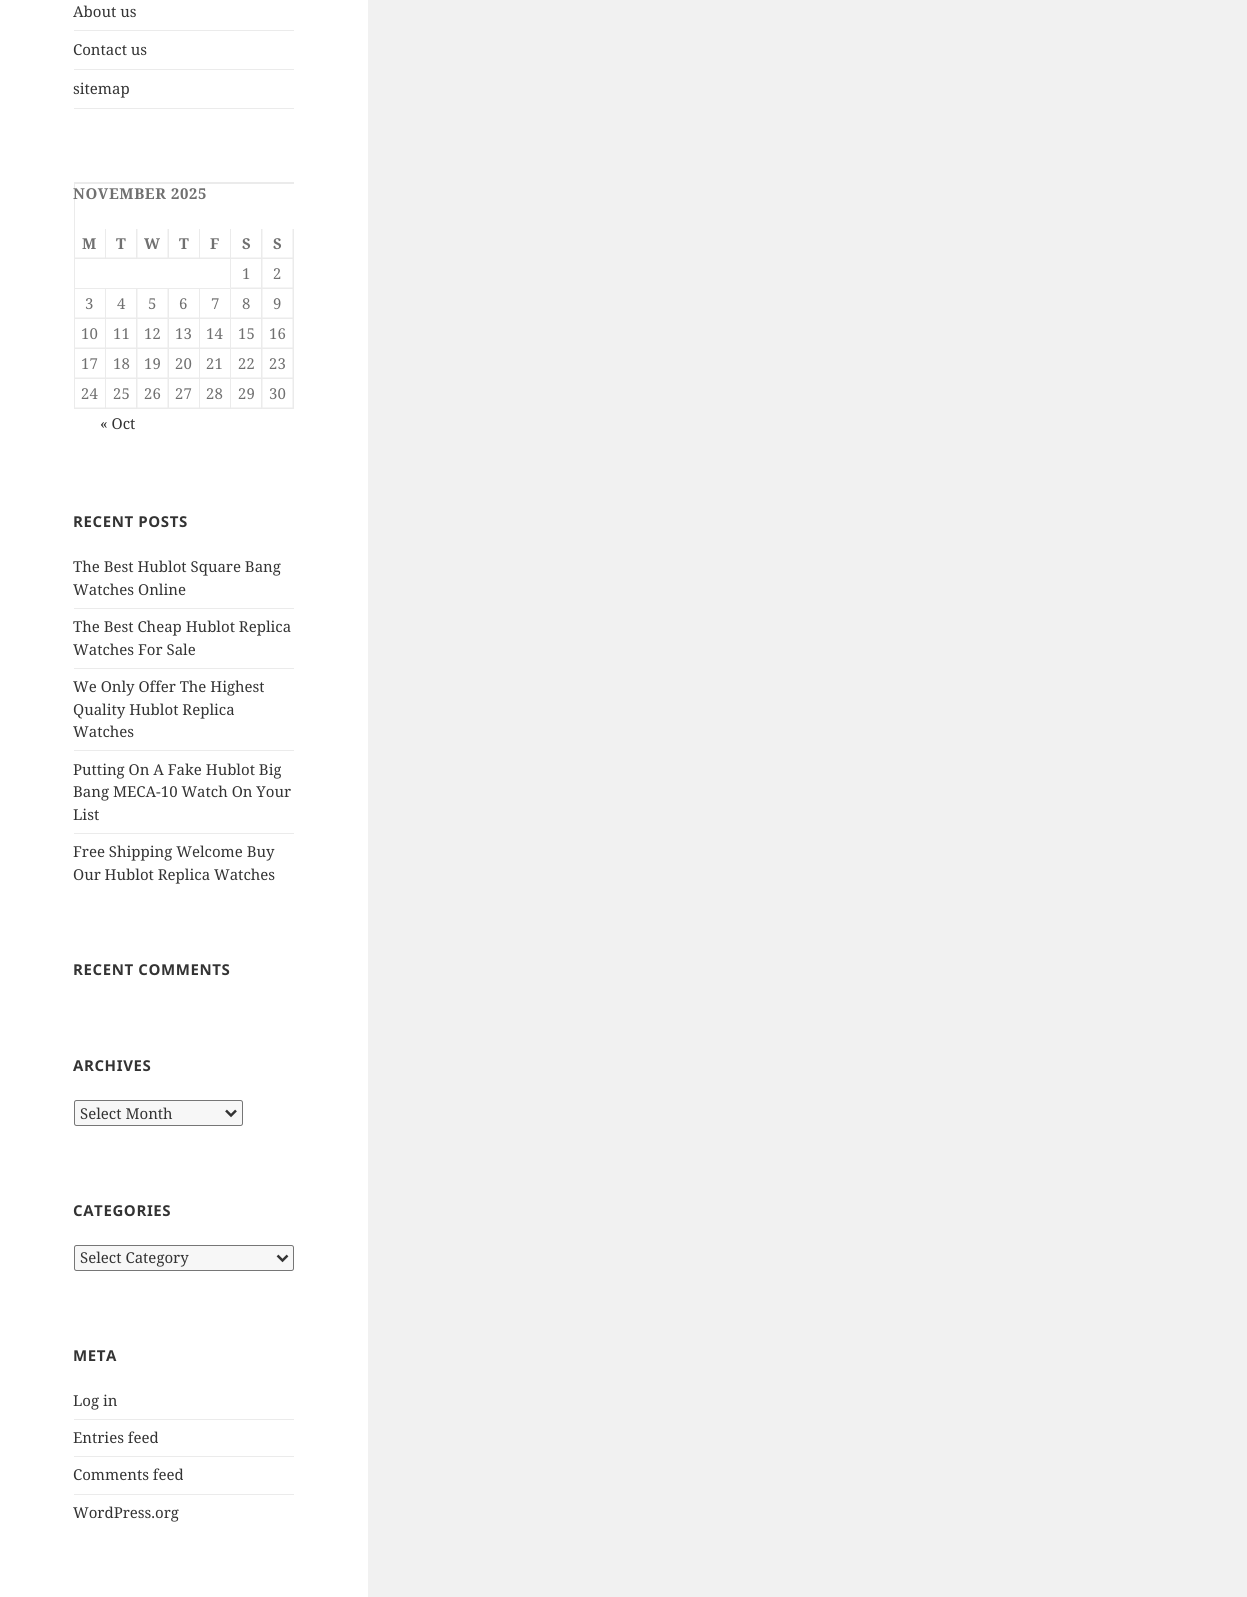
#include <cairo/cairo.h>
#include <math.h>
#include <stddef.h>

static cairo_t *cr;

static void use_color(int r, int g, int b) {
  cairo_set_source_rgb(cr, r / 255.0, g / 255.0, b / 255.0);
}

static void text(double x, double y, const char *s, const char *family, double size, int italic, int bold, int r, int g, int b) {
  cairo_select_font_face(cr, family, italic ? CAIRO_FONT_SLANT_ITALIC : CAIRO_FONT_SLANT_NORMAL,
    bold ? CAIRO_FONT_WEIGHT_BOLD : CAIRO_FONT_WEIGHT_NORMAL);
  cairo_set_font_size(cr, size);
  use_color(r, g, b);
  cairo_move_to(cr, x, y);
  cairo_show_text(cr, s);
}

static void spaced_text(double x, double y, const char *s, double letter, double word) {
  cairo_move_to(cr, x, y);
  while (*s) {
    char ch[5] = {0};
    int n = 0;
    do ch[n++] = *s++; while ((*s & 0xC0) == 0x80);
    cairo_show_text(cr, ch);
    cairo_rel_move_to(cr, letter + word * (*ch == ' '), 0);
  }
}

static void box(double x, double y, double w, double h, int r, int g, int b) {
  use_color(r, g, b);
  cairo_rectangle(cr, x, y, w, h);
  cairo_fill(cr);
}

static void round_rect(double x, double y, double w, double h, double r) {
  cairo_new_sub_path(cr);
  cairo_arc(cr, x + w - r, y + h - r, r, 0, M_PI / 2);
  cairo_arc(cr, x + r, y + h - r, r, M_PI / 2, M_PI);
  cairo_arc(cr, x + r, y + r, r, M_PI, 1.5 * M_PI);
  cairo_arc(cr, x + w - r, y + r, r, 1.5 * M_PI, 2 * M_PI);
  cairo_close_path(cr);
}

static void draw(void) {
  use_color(241, 241, 241);
  cairo_paint(cr);
  box(0, 0, 368, 1597, 255, 255, 255);
  box(74, 108, 220, 1, 235, 235, 235);
  box(74, 30, 220, 1, 235, 235, 235);
  box(74, 69, 220, 1, 235, 235, 235);
  cairo_new_path(cr);
  cairo_move_to(cr, 74, 182);
  cairo_line_to(cr, 294, 182);
  cairo_line_to(cr, 294, 184);
  cairo_line_to(cr, 75, 184);
  cairo_close_path(cr);
  cairo_fill(cr);
  cairo_set_source_rgba(cr, 0.2, 0.2, 0.2, 0.1);
  cairo_new_path(cr);
  cairo_move_to(cr, 74, 409);
  cairo_line_to(cr, 74, 182);
  cairo_line_to(cr, 75, 184);
  cairo_line_to(cr, 75, 409);
  cairo_close_path(cr);
  cairo_fill(cr);
  use_color(235, 235, 235);
  cairo_new_path(cr);
  cairo_move_to(cr, 106, 229);
  cairo_line_to(cr, 106, 259);
  cairo_line_to(cr, 105, 257.5);
  cairo_line_to(cr, 105, 229);
  cairo_close_path(cr);
  cairo_fill(cr);
  cairo_set_source_rgba(cr, 0.2, 0.2, 0.2, 0.1);
  cairo_new_path(cr);
  cairo_move_to(cr, 106, 259);
  cairo_line_to(cr, 75, 259);
  cairo_line_to(cr, 75, 257.5);
  cairo_line_to(cr, 105, 257.5);
  cairo_close_path(cr);
  cairo_fill(cr);
  use_color(235, 235, 235);
  cairo_new_path(cr);
  cairo_move_to(cr, 137.5, 229);
  cairo_line_to(cr, 137.5, 259);
  cairo_line_to(cr, 136, 257.5);
  cairo_line_to(cr, 136, 229);
  cairo_close_path(cr);
  cairo_fill(cr);
  cairo_set_source_rgba(cr, 0.2, 0.2, 0.2, 0.1);
  cairo_new_path(cr);
  cairo_move_to(cr, 137.5, 259);
  cairo_line_to(cr, 106, 259);
  cairo_line_to(cr, 106, 257.5);
  cairo_line_to(cr, 136, 257.5);
  cairo_close_path(cr);
  cairo_fill(cr);
  use_color(235, 235, 235);
  cairo_new_path(cr);
  cairo_move_to(cr, 169, 229);
  cairo_line_to(cr, 169, 259);
  cairo_line_to(cr, 167.5, 257.5);
  cairo_line_to(cr, 167.5, 229);
  cairo_close_path(cr);
  cairo_fill(cr);
  cairo_set_source_rgba(cr, 0.2, 0.2, 0.2, 0.1);
  cairo_new_path(cr);
  cairo_move_to(cr, 169, 259);
  cairo_line_to(cr, 137.5, 259);
  cairo_line_to(cr, 137.5, 257.5);
  cairo_line_to(cr, 167.5, 257.5);
  cairo_close_path(cr);
  cairo_fill(cr);
  use_color(235, 235, 235);
  cairo_new_path(cr);
  cairo_move_to(cr, 200, 229);
  cairo_line_to(cr, 200, 259);
  cairo_line_to(cr, 199, 257.5);
  cairo_line_to(cr, 199, 229);
  cairo_close_path(cr);
  cairo_fill(cr);
  cairo_set_source_rgba(cr, 0.2, 0.2, 0.2, 0.1);
  cairo_new_path(cr);
  cairo_move_to(cr, 200, 259);
  cairo_line_to(cr, 169, 259);
  cairo_line_to(cr, 169, 257.5);
  cairo_line_to(cr, 199, 257.5);
  cairo_close_path(cr);
  cairo_fill(cr);
  use_color(235, 235, 235);
  cairo_new_path(cr);
  cairo_move_to(cr, 231, 229);
  cairo_line_to(cr, 231, 259);
  cairo_line_to(cr, 230, 257.5);
  cairo_line_to(cr, 230, 229);
  cairo_close_path(cr);
  cairo_fill(cr);
  cairo_set_source_rgba(cr, 0.2, 0.2, 0.2, 0.1);
  cairo_new_path(cr);
  cairo_move_to(cr, 231, 259);
  cairo_line_to(cr, 200, 259);
  cairo_line_to(cr, 200, 257.5);
  cairo_line_to(cr, 230, 257.5);
  cairo_close_path(cr);
  cairo_fill(cr);
  use_color(235, 235, 235);
  cairo_new_path(cr);
  cairo_move_to(cr, 262.5, 229);
  cairo_line_to(cr, 262.5, 259);
  cairo_line_to(cr, 261, 257.5);
  cairo_line_to(cr, 261, 229);
  cairo_close_path(cr);
  cairo_fill(cr);
  cairo_set_source_rgba(cr, 0.2, 0.2, 0.2, 0.1);
  cairo_new_path(cr);
  cairo_move_to(cr, 262.5, 259);
  cairo_line_to(cr, 231, 259);
  cairo_line_to(cr, 231, 257.5);
  cairo_line_to(cr, 261, 257.5);
  cairo_close_path(cr);
  cairo_fill(cr);
  use_color(235, 235, 235);
  cairo_new_path(cr);
  cairo_move_to(cr, 294, 229);
  cairo_line_to(cr, 294, 259);
  cairo_line_to(cr, 292.5, 257.5);
  cairo_line_to(cr, 292.5, 229);
  cairo_close_path(cr);
  cairo_fill(cr);
  cairo_set_source_rgba(cr, 0.2, 0.2, 0.2, 0.1);
  cairo_new_path(cr);
  cairo_move_to(cr, 294, 259);
  cairo_line_to(cr, 262.5, 259);
  cairo_line_to(cr, 262.5, 257.5);
  cairo_line_to(cr, 292.5, 257.5);
  cairo_close_path(cr);
  cairo_fill(cr);
  use_color(235, 235, 235);
  cairo_new_path(cr);
  cairo_move_to(cr, 231, 259);
  cairo_line_to(cr, 231, 289);
  cairo_line_to(cr, 230, 287.5);
  cairo_line_to(cr, 230, 259);
  cairo_close_path(cr);
  cairo_fill(cr);
  cairo_set_source_rgba(cr, 0.2, 0.2, 0.2, 0.1);
  cairo_new_path(cr);
  cairo_move_to(cr, 231, 289);
  cairo_line_to(cr, 75, 289);
  cairo_line_to(cr, 75, 288);
  cairo_line_to(cr, 230, 288);
  cairo_close_path(cr);
  cairo_fill(cr);
  use_color(235, 235, 235);
  cairo_new_path(cr);
  cairo_move_to(cr, 262.5, 259);
  cairo_line_to(cr, 262.5, 289);
  cairo_line_to(cr, 261, 287.5);
  cairo_line_to(cr, 261, 259);
  cairo_close_path(cr);
  cairo_fill(cr);
  cairo_set_source_rgba(cr, 0.2, 0.2, 0.2, 0.1);
  cairo_new_path(cr);
  cairo_move_to(cr, 262.5, 289);
  cairo_line_to(cr, 231, 289);
  cairo_line_to(cr, 231, 287.5);
  cairo_line_to(cr, 261, 287.5);
  cairo_close_path(cr);
  cairo_fill(cr);
  use_color(235, 235, 235);
  cairo_new_path(cr);
  cairo_move_to(cr, 294, 259);
  cairo_line_to(cr, 294, 289);
  cairo_line_to(cr, 292.5, 287.5);
  cairo_line_to(cr, 292.5, 259);
  cairo_close_path(cr);
  cairo_fill(cr);
  cairo_set_source_rgba(cr, 0.2, 0.2, 0.2, 0.1);
  cairo_new_path(cr);
  cairo_move_to(cr, 294, 289);
  cairo_line_to(cr, 262.5, 289);
  cairo_line_to(cr, 262.5, 287.5);
  cairo_line_to(cr, 292.5, 287.5);
  cairo_close_path(cr);
  cairo_fill(cr);
  use_color(235, 235, 235);
  cairo_new_path(cr);
  cairo_move_to(cr, 106, 289);
  cairo_line_to(cr, 106, 319);
  cairo_line_to(cr, 105, 317.5);
  cairo_line_to(cr, 105, 289);
  cairo_close_path(cr);
  cairo_fill(cr);
  cairo_set_source_rgba(cr, 0.2, 0.2, 0.2, 0.1);
  cairo_new_path(cr);
  cairo_move_to(cr, 106, 319);
  cairo_line_to(cr, 75, 319);
  cairo_line_to(cr, 75, 317.5);
  cairo_line_to(cr, 105, 317.5);
  cairo_close_path(cr);
  cairo_fill(cr);
  use_color(235, 235, 235);
  cairo_new_path(cr);
  cairo_move_to(cr, 137.5, 289);
  cairo_line_to(cr, 137.5, 319);
  cairo_line_to(cr, 136, 317.5);
  cairo_line_to(cr, 136, 289);
  cairo_close_path(cr);
  cairo_fill(cr);
  cairo_set_source_rgba(cr, 0.2, 0.2, 0.2, 0.1);
  cairo_new_path(cr);
  cairo_move_to(cr, 137.5, 319);
  cairo_line_to(cr, 106, 319);
  cairo_line_to(cr, 106, 317.5);
  cairo_line_to(cr, 136, 317.5);
  cairo_close_path(cr);
  cairo_fill(cr);
  use_color(235, 235, 235);
  cairo_new_path(cr);
  cairo_move_to(cr, 169, 289);
  cairo_line_to(cr, 169, 319);
  cairo_line_to(cr, 167.5, 317.5);
  cairo_line_to(cr, 167.5, 289);
  cairo_close_path(cr);
  cairo_fill(cr);
  cairo_set_source_rgba(cr, 0.2, 0.2, 0.2, 0.1);
  cairo_new_path(cr);
  cairo_move_to(cr, 169, 319);
  cairo_line_to(cr, 137.5, 319);
  cairo_line_to(cr, 137.5, 317.5);
  cairo_line_to(cr, 167.5, 317.5);
  cairo_close_path(cr);
  cairo_fill(cr);
  use_color(235, 235, 235);
  cairo_new_path(cr);
  cairo_move_to(cr, 200, 289);
  cairo_line_to(cr, 200, 319);
  cairo_line_to(cr, 199, 317.5);
  cairo_line_to(cr, 199, 289);
  cairo_close_path(cr);
  cairo_fill(cr);
  cairo_set_source_rgba(cr, 0.2, 0.2, 0.2, 0.1);
  cairo_new_path(cr);
  cairo_move_to(cr, 200, 319);
  cairo_line_to(cr, 169, 319);
  cairo_line_to(cr, 169, 317.5);
  cairo_line_to(cr, 199, 317.5);
  cairo_close_path(cr);
  cairo_fill(cr);
  use_color(235, 235, 235);
  cairo_new_path(cr);
  cairo_move_to(cr, 231, 289);
  cairo_line_to(cr, 231, 319);
  cairo_line_to(cr, 230, 317.5);
  cairo_line_to(cr, 230, 289);
  cairo_close_path(cr);
  cairo_fill(cr);
  cairo_set_source_rgba(cr, 0.2, 0.2, 0.2, 0.1);
  cairo_new_path(cr);
  cairo_move_to(cr, 231, 319);
  cairo_line_to(cr, 200, 319);
  cairo_line_to(cr, 200, 317.5);
  cairo_line_to(cr, 230, 317.5);
  cairo_close_path(cr);
  cairo_fill(cr);
  use_color(235, 235, 235);
  cairo_new_path(cr);
  cairo_move_to(cr, 262.5, 289);
  cairo_line_to(cr, 262.5, 319);
  cairo_line_to(cr, 261, 317.5);
  cairo_line_to(cr, 261, 289);
  cairo_close_path(cr);
  cairo_fill(cr);
  cairo_set_source_rgba(cr, 0.2, 0.2, 0.2, 0.1);
  cairo_new_path(cr);
  cairo_move_to(cr, 262.5, 319);
  cairo_line_to(cr, 231, 319);
  cairo_line_to(cr, 231, 317.5);
  cairo_line_to(cr, 261, 317.5);
  cairo_close_path(cr);
  cairo_fill(cr);
  use_color(235, 235, 235);
  cairo_new_path(cr);
  cairo_move_to(cr, 294, 289);
  cairo_line_to(cr, 294, 319);
  cairo_line_to(cr, 292.5, 317.5);
  cairo_line_to(cr, 292.5, 289);
  cairo_close_path(cr);
  cairo_fill(cr);
  cairo_set_source_rgba(cr, 0.2, 0.2, 0.2, 0.1);
  cairo_new_path(cr);
  cairo_move_to(cr, 294, 319);
  cairo_line_to(cr, 262.5, 319);
  cairo_line_to(cr, 262.5, 317.5);
  cairo_line_to(cr, 292.5, 317.5);
  cairo_close_path(cr);
  cairo_fill(cr);
  use_color(235, 235, 235);
  cairo_new_path(cr);
  cairo_move_to(cr, 106, 319);
  cairo_line_to(cr, 106, 349);
  cairo_line_to(cr, 105, 347.5);
  cairo_line_to(cr, 105, 319);
  cairo_close_path(cr);
  cairo_fill(cr);
  cairo_set_source_rgba(cr, 0.2, 0.2, 0.2, 0.1);
  cairo_new_path(cr);
  cairo_move_to(cr, 106, 349);
  cairo_line_to(cr, 75, 349);
  cairo_line_to(cr, 75, 347.5);
  cairo_line_to(cr, 105, 347.5);
  cairo_close_path(cr);
  cairo_fill(cr);
  use_color(235, 235, 235);
  cairo_new_path(cr);
  cairo_move_to(cr, 137.5, 319);
  cairo_line_to(cr, 137.5, 349);
  cairo_line_to(cr, 136, 347.5);
  cairo_line_to(cr, 136, 319);
  cairo_close_path(cr);
  cairo_fill(cr);
  cairo_set_source_rgba(cr, 0.2, 0.2, 0.2, 0.1);
  cairo_new_path(cr);
  cairo_move_to(cr, 137.5, 349);
  cairo_line_to(cr, 106, 349);
  cairo_line_to(cr, 106, 347.5);
  cairo_line_to(cr, 136, 347.5);
  cairo_close_path(cr);
  cairo_fill(cr);
  use_color(235, 235, 235);
  cairo_new_path(cr);
  cairo_move_to(cr, 169, 319);
  cairo_line_to(cr, 169, 349);
  cairo_line_to(cr, 167.5, 347.5);
  cairo_line_to(cr, 167.5, 319);
  cairo_close_path(cr);
  cairo_fill(cr);
  cairo_set_source_rgba(cr, 0.2, 0.2, 0.2, 0.1);
  cairo_new_path(cr);
  cairo_move_to(cr, 169, 349);
  cairo_line_to(cr, 137.5, 349);
  cairo_line_to(cr, 137.5, 347.5);
  cairo_line_to(cr, 167.5, 347.5);
  cairo_close_path(cr);
  cairo_fill(cr);
  use_color(235, 235, 235);
  cairo_new_path(cr);
  cairo_move_to(cr, 200, 319);
  cairo_line_to(cr, 200, 349);
  cairo_line_to(cr, 199, 347.5);
  cairo_line_to(cr, 199, 319);
  cairo_close_path(cr);
  cairo_fill(cr);
  cairo_set_source_rgba(cr, 0.2, 0.2, 0.2, 0.1);
  cairo_new_path(cr);
  cairo_move_to(cr, 200, 349);
  cairo_line_to(cr, 169, 349);
  cairo_line_to(cr, 169, 347.5);
  cairo_line_to(cr, 199, 347.5);
  cairo_close_path(cr);
  cairo_fill(cr);
  use_color(235, 235, 235);
  cairo_new_path(cr);
  cairo_move_to(cr, 231, 319);
  cairo_line_to(cr, 231, 349);
  cairo_line_to(cr, 230, 347.5);
  cairo_line_to(cr, 230, 319);
  cairo_close_path(cr);
  cairo_fill(cr);
  cairo_set_source_rgba(cr, 0.2, 0.2, 0.2, 0.1);
  cairo_new_path(cr);
  cairo_move_to(cr, 231, 349);
  cairo_line_to(cr, 200, 349);
  cairo_line_to(cr, 200, 347.5);
  cairo_line_to(cr, 230, 347.5);
  cairo_close_path(cr);
  cairo_fill(cr);
  use_color(235, 235, 235);
  cairo_new_path(cr);
  cairo_move_to(cr, 262.5, 319);
  cairo_line_to(cr, 262.5, 349);
  cairo_line_to(cr, 261, 347.5);
  cairo_line_to(cr, 261, 319);
  cairo_close_path(cr);
  cairo_fill(cr);
  cairo_set_source_rgba(cr, 0.2, 0.2, 0.2, 0.1);
  cairo_new_path(cr);
  cairo_move_to(cr, 262.5, 349);
  cairo_line_to(cr, 231, 349);
  cairo_line_to(cr, 231, 347.5);
  cairo_line_to(cr, 261, 347.5);
  cairo_close_path(cr);
  cairo_fill(cr);
  use_color(235, 235, 235);
  cairo_new_path(cr);
  cairo_move_to(cr, 294, 319);
  cairo_line_to(cr, 294, 349);
  cairo_line_to(cr, 292.5, 347.5);
  cairo_line_to(cr, 292.5, 319);
  cairo_close_path(cr);
  cairo_fill(cr);
  cairo_set_source_rgba(cr, 0.2, 0.2, 0.2, 0.1);
  cairo_new_path(cr);
  cairo_move_to(cr, 294, 349);
  cairo_line_to(cr, 262.5, 349);
  cairo_line_to(cr, 262.5, 347.5);
  cairo_line_to(cr, 292.5, 347.5);
  cairo_close_path(cr);
  cairo_fill(cr);
  use_color(235, 235, 235);
  cairo_new_path(cr);
  cairo_move_to(cr, 106, 349);
  cairo_line_to(cr, 106, 379);
  cairo_line_to(cr, 105, 377.5);
  cairo_line_to(cr, 105, 349);
  cairo_close_path(cr);
  cairo_fill(cr);
  cairo_set_source_rgba(cr, 0.2, 0.2, 0.2, 0.1);
  cairo_new_path(cr);
  cairo_move_to(cr, 106, 379);
  cairo_line_to(cr, 75, 379);
  cairo_line_to(cr, 75, 377.5);
  cairo_line_to(cr, 105, 377.5);
  cairo_close_path(cr);
  cairo_fill(cr);
  use_color(235, 235, 235);
  cairo_new_path(cr);
  cairo_move_to(cr, 137.5, 349);
  cairo_line_to(cr, 137.5, 379);
  cairo_line_to(cr, 136, 377.5);
  cairo_line_to(cr, 136, 349);
  cairo_close_path(cr);
  cairo_fill(cr);
  cairo_set_source_rgba(cr, 0.2, 0.2, 0.2, 0.1);
  cairo_new_path(cr);
  cairo_move_to(cr, 137.5, 379);
  cairo_line_to(cr, 106, 379);
  cairo_line_to(cr, 106, 377.5);
  cairo_line_to(cr, 136, 377.5);
  cairo_close_path(cr);
  cairo_fill(cr);
  use_color(235, 235, 235);
  cairo_new_path(cr);
  cairo_move_to(cr, 169, 349);
  cairo_line_to(cr, 169, 379);
  cairo_line_to(cr, 167.5, 377.5);
  cairo_line_to(cr, 167.5, 349);
  cairo_close_path(cr);
  cairo_fill(cr);
  cairo_set_source_rgba(cr, 0.2, 0.2, 0.2, 0.1);
  cairo_new_path(cr);
  cairo_move_to(cr, 169, 379);
  cairo_line_to(cr, 137.5, 379);
  cairo_line_to(cr, 137.5, 377.5);
  cairo_line_to(cr, 167.5, 377.5);
  cairo_close_path(cr);
  cairo_fill(cr);
  use_color(235, 235, 235);
  cairo_new_path(cr);
  cairo_move_to(cr, 200, 349);
  cairo_line_to(cr, 200, 379);
  cairo_line_to(cr, 199, 377.5);
  cairo_line_to(cr, 199, 349);
  cairo_close_path(cr);
  cairo_fill(cr);
  cairo_set_source_rgba(cr, 0.2, 0.2, 0.2, 0.1);
  cairo_new_path(cr);
  cairo_move_to(cr, 200, 379);
  cairo_line_to(cr, 169, 379);
  cairo_line_to(cr, 169, 377.5);
  cairo_line_to(cr, 199, 377.5);
  cairo_close_path(cr);
  cairo_fill(cr);
  use_color(235, 235, 235);
  cairo_new_path(cr);
  cairo_move_to(cr, 231, 349);
  cairo_line_to(cr, 231, 379);
  cairo_line_to(cr, 230, 377.5);
  cairo_line_to(cr, 230, 349);
  cairo_close_path(cr);
  cairo_fill(cr);
  cairo_set_source_rgba(cr, 0.2, 0.2, 0.2, 0.1);
  cairo_new_path(cr);
  cairo_move_to(cr, 231, 379);
  cairo_line_to(cr, 200, 379);
  cairo_line_to(cr, 200, 377.5);
  cairo_line_to(cr, 230, 377.5);
  cairo_close_path(cr);
  cairo_fill(cr);
  use_color(235, 235, 235);
  cairo_new_path(cr);
  cairo_move_to(cr, 262.5, 349);
  cairo_line_to(cr, 262.5, 379);
  cairo_line_to(cr, 261, 377.5);
  cairo_line_to(cr, 261, 349);
  cairo_close_path(cr);
  cairo_fill(cr);
  cairo_set_source_rgba(cr, 0.2, 0.2, 0.2, 0.1);
  cairo_new_path(cr);
  cairo_move_to(cr, 262.5, 379);
  cairo_line_to(cr, 231, 379);
  cairo_line_to(cr, 231, 377.5);
  cairo_line_to(cr, 261, 377.5);
  cairo_close_path(cr);
  cairo_fill(cr);
  use_color(235, 235, 235);
  cairo_new_path(cr);
  cairo_move_to(cr, 294, 349);
  cairo_line_to(cr, 294, 379);
  cairo_line_to(cr, 292.5, 377.5);
  cairo_line_to(cr, 292.5, 349);
  cairo_close_path(cr);
  cairo_fill(cr);
  cairo_set_source_rgba(cr, 0.2, 0.2, 0.2, 0.1);
  cairo_new_path(cr);
  cairo_move_to(cr, 294, 379);
  cairo_line_to(cr, 262.5, 379);
  cairo_line_to(cr, 262.5, 377.5);
  cairo_line_to(cr, 292.5, 377.5);
  cairo_close_path(cr);
  cairo_fill(cr);
  use_color(235, 235, 235);
  cairo_new_path(cr);
  cairo_move_to(cr, 106, 379);
  cairo_line_to(cr, 106, 409);
  cairo_line_to(cr, 105, 407.5);
  cairo_line_to(cr, 105, 379);
  cairo_close_path(cr);
  cairo_fill(cr);
  cairo_set_source_rgba(cr, 0.2, 0.2, 0.2, 0.1);
  cairo_new_path(cr);
  cairo_move_to(cr, 106, 409);
  cairo_line_to(cr, 75, 409);
  cairo_line_to(cr, 75, 407.5);
  cairo_line_to(cr, 105, 407.5);
  cairo_close_path(cr);
  cairo_fill(cr);
  use_color(235, 235, 235);
  cairo_new_path(cr);
  cairo_move_to(cr, 137.5, 379);
  cairo_line_to(cr, 137.5, 409);
  cairo_line_to(cr, 136, 407.5);
  cairo_line_to(cr, 136, 379);
  cairo_close_path(cr);
  cairo_fill(cr);
  cairo_set_source_rgba(cr, 0.2, 0.2, 0.2, 0.1);
  cairo_new_path(cr);
  cairo_move_to(cr, 137.5, 409);
  cairo_line_to(cr, 106, 409);
  cairo_line_to(cr, 106, 407.5);
  cairo_line_to(cr, 136, 407.5);
  cairo_close_path(cr);
  cairo_fill(cr);
  use_color(235, 235, 235);
  cairo_new_path(cr);
  cairo_move_to(cr, 169, 379);
  cairo_line_to(cr, 169, 409);
  cairo_line_to(cr, 167.5, 407.5);
  cairo_line_to(cr, 167.5, 379);
  cairo_close_path(cr);
  cairo_fill(cr);
  cairo_set_source_rgba(cr, 0.2, 0.2, 0.2, 0.1);
  cairo_new_path(cr);
  cairo_move_to(cr, 169, 409);
  cairo_line_to(cr, 137.5, 409);
  cairo_line_to(cr, 137.5, 407.5);
  cairo_line_to(cr, 167.5, 407.5);
  cairo_close_path(cr);
  cairo_fill(cr);
  use_color(235, 235, 235);
  cairo_new_path(cr);
  cairo_move_to(cr, 200, 379);
  cairo_line_to(cr, 200, 409);
  cairo_line_to(cr, 199, 407.5);
  cairo_line_to(cr, 199, 379);
  cairo_close_path(cr);
  cairo_fill(cr);
  cairo_set_source_rgba(cr, 0.2, 0.2, 0.2, 0.1);
  cairo_new_path(cr);
  cairo_move_to(cr, 200, 409);
  cairo_line_to(cr, 169, 409);
  cairo_line_to(cr, 169, 407.5);
  cairo_line_to(cr, 199, 407.5);
  cairo_close_path(cr);
  cairo_fill(cr);
  use_color(235, 235, 235);
  cairo_new_path(cr);
  cairo_move_to(cr, 231, 379);
  cairo_line_to(cr, 231, 409);
  cairo_line_to(cr, 230, 407.5);
  cairo_line_to(cr, 230, 379);
  cairo_close_path(cr);
  cairo_fill(cr);
  cairo_set_source_rgba(cr, 0.2, 0.2, 0.2, 0.1);
  cairo_new_path(cr);
  cairo_move_to(cr, 231, 409);
  cairo_line_to(cr, 200, 409);
  cairo_line_to(cr, 200, 407.5);
  cairo_line_to(cr, 230, 407.5);
  cairo_close_path(cr);
  cairo_fill(cr);
  use_color(235, 235, 235);
  cairo_new_path(cr);
  cairo_move_to(cr, 262.5, 379);
  cairo_line_to(cr, 262.5, 409);
  cairo_line_to(cr, 261, 407.5);
  cairo_line_to(cr, 261, 379);
  cairo_close_path(cr);
  cairo_fill(cr);
  cairo_set_source_rgba(cr, 0.2, 0.2, 0.2, 0.1);
  cairo_new_path(cr);
  cairo_move_to(cr, 262.5, 409);
  cairo_line_to(cr, 231, 409);
  cairo_line_to(cr, 231, 407.5);
  cairo_line_to(cr, 261, 407.5);
  cairo_close_path(cr);
  cairo_fill(cr);
  use_color(235, 235, 235);
  cairo_new_path(cr);
  cairo_move_to(cr, 294, 379);
  cairo_line_to(cr, 294, 409);
  cairo_line_to(cr, 292.5, 407.5);
  cairo_line_to(cr, 292.5, 379);
  cairo_close_path(cr);
  cairo_fill(cr);
  cairo_set_source_rgba(cr, 0.2, 0.2, 0.2, 0.1);
  cairo_new_path(cr);
  cairo_move_to(cr, 294, 409);
  cairo_line_to(cr, 262.5, 409);
  cairo_line_to(cr, 262.5, 407.5);
  cairo_line_to(cr, 292.5, 407.5);
  cairo_close_path(cr);
  cairo_fill(cr);
  box(74, 608, 220, 1, 235, 235, 235);
  box(74, 668, 220, 1, 235, 235, 235);
  box(74, 750, 220, 1, 235, 235, 235);
  box(74, 833, 220, 1, 235, 235, 235);
  use_color(247, 247, 247);
  round_rect(74.5, 1100.5, 168, 25, 2);
  cairo_fill_preserve(cr);
  use_color(118, 118, 118);
  cairo_set_line_width(cr, 1);
  cairo_stroke(cr);
  cairo_new_path(cr);
  cairo_move_to(cr, 226, 1110.5);
  cairo_line_to(cr, 231, 1115.5);
  cairo_line_to(cr, 236, 1110.5);
  use_color(51, 51, 51);
  cairo_set_line_width(cr, 2.5);
  cairo_stroke(cr);
  use_color(247, 247, 247);
  round_rect(74.5, 1245.5, 219, 25, 2);
  cairo_fill_preserve(cr);
  use_color(118, 118, 118);
  cairo_set_line_width(cr, 1);
  cairo_stroke(cr);
  cairo_new_path(cr);
  cairo_move_to(cr, 277.5, 1255.5);
  cairo_line_to(cr, 282.5, 1260.5);
  cairo_line_to(cr, 287.5, 1255.5);
  use_color(51, 51, 51);
  cairo_set_line_width(cr, 2.5);
  cairo_stroke(cr);
  box(74, 1419, 220, 1, 235, 235, 235);
  box(74, 1456, 220, 1, 235, 235, 235);
  box(74, 1494, 220, 1, 235, 235, 235);
  text(73, 17, "About us", "Noto Serif", 15, 0, 0, 51, 51, 51);
  text(73, 55, "Contact us", "Noto Serif", 15, 0, 0, 51, 51, 51);
  text(73, 94, "sitemap", "Noto Serif", 15, 0, 0, 51, 51, 51);
  cairo_select_font_face(cr, "Noto Serif", CAIRO_FONT_SLANT_NORMAL, CAIRO_FONT_WEIGHT_BOLD);
  use_color(112, 112, 112);
  spaced_text(73, 199, "NOVEMBER 2025", 0.6, 0);
  text(82, 249, "M", "Noto Serif", 15, 0, 1, 112, 112, 112);
  text(116, 249, "T", "Noto Serif", 15, 0, 1, 112, 112, 112);
  text(144, 249, "W", "Noto Serif", 15, 0, 1, 112, 112, 112);
  text(179, 249, "T", "Noto Serif", 15, 0, 1, 112, 112, 112);
  text(210, 249, "F", "Noto Serif", 15, 0, 1, 112, 112, 112);
  text(242, 249, "S", "Noto Serif", 15, 0, 1, 112, 112, 112);
  text(273, 249, "S", "Noto Serif", 15, 0, 1, 112, 112, 112);
  text(242, 279, "1", "Noto Serif", 15, 0, 0, 112, 112, 112);
  text(273, 279, "2", "Noto Serif", 15, 0, 0, 112, 112, 112);
  text(85, 309, "3", "Noto Serif", 15, 0, 0, 112, 112, 112);
  text(117, 309, "4", "Noto Serif", 15, 0, 0, 112, 112, 112);
  text(148, 309, "5", "Noto Serif", 15, 0, 0, 112, 112, 112);
  text(179, 309, "6", "Noto Serif", 15, 0, 0, 112, 112, 112);
  text(211, 309, "7", "Noto Serif", 15, 0, 0, 112, 112, 112);
  text(242, 309, "8", "Noto Serif", 15, 0, 0, 112, 112, 112);
  text(273, 309, "9", "Noto Serif", 15, 0, 0, 112, 112, 112);
  text(81, 339, "10", "Noto Serif", 15, 0, 0, 112, 112, 112);
  text(113, 339, "11", "Noto Serif", 15, 0, 0, 112, 112, 112);
  text(144, 339, "12", "Noto Serif", 15, 0, 0, 112, 112, 112);
  text(175, 339, "13", "Noto Serif", 15, 0, 0, 112, 112, 112);
  text(206, 339, "14", "Noto Serif", 15, 0, 0, 112, 112, 112);
  text(238, 339, "15", "Noto Serif", 15, 0, 0, 112, 112, 112);
  text(269, 339, "16", "Noto Serif", 15, 0, 0, 112, 112, 112);
  text(81, 369, "17", "Noto Serif", 15, 0, 0, 112, 112, 112);
  text(113, 369, "18", "Noto Serif", 15, 0, 0, 112, 112, 112);
  text(144, 369, "19", "Noto Serif", 15, 0, 0, 112, 112, 112);
  text(175, 369, "20", "Noto Serif", 15, 0, 0, 112, 112, 112);
  text(206, 369, "21", "Noto Serif", 15, 0, 0, 112, 112, 112);
  text(238, 369, "22", "Noto Serif", 15, 0, 0, 112, 112, 112);
  text(269, 369, "23", "Noto Serif", 15, 0, 0, 112, 112, 112);
  text(81, 399, "24", "Noto Serif", 15, 0, 0, 112, 112, 112);
  text(113, 399, "25", "Noto Serif", 15, 0, 0, 112, 112, 112);
  text(144, 399, "26", "Noto Serif", 15, 0, 0, 112, 112, 112);
  text(175, 399, "27", "Noto Serif", 15, 0, 0, 112, 112, 112);
  text(206, 399, "28", "Noto Serif", 15, 0, 0, 112, 112, 112);
  text(238, 399, "29", "Noto Serif", 15, 0, 0, 112, 112, 112);
  text(269, 399, "30", "Noto Serif", 15, 0, 0, 112, 112, 112);
  text(100, 429, "« Oct", "Noto Serif", 15, 0, 0, 51, 51, 51);
  cairo_select_font_face(cr, "Noto Sans", CAIRO_FONT_SLANT_NORMAL, CAIRO_FONT_WEIGHT_BOLD);
  spaced_text(73, 527, "RECENT POSTS", 0.6, 0);
  text(73, 572, "The Best Hublot Square Bang", "Noto Serif", 15, 0, 0, 51, 51, 51);
  text(73, 595, "Watches Online", "Noto Serif", 15, 0, 0, 51, 51, 51);
  text(73, 632, "The Best Cheap Hublot Replica", "Noto Serif", 15, 0, 0, 51, 51, 51);
  text(73, 655, "Watches For Sale", "Noto Serif", 15, 0, 0, 51, 51, 51);
  text(73, 692, "We Only Offer The Highest", "Noto Serif", 15, 0, 0, 51, 51, 51);
  text(73, 715, "Quality Hublot Replica", "Noto Serif", 15, 0, 0, 51, 51, 51);
  text(73, 737, "Watches", "Noto Serif", 15, 0, 0, 51, 51, 51);
  text(73, 775, "Putting On A Fake Hublot Big", "Noto Serif", 15, 0, 0, 51, 51, 51);
  text(73, 797, "Bang MECA-10 Watch On Your", "Noto Serif", 15, 0, 0, 51, 51, 51);
  text(73, 820, "List", "Noto Serif", 15, 0, 0, 51, 51, 51);
  text(73, 857, "Free Shipping Welcome Buy", "Noto Serif", 15, 0, 0, 51, 51, 51);
  text(73, 880, "Our Hublot Replica Watches", "Noto Serif", 15, 0, 0, 51, 51, 51);
  cairo_select_font_face(cr, "Noto Sans", CAIRO_FONT_SLANT_NORMAL, CAIRO_FONT_WEIGHT_BOLD);
  spaced_text(73, 975, "RECENT COMMENTS", 0.6, 0);
  spaced_text(73, 1071, "ARCHIVES", 0.6, 0);
  text(80, 1119, "Select Month", "Noto Serif", 15, 0, 0, 51, 51, 51);
  cairo_select_font_face(cr, "Noto Sans", CAIRO_FONT_SLANT_NORMAL, CAIRO_FONT_WEIGHT_BOLD);
  spaced_text(73, 1216, "CATEGORIES", 0.6, 0);
  text(80, 1263, "Select Category", "Noto Serif", 15, 0, 0, 51, 51, 51);
  cairo_select_font_face(cr, "Noto Sans", CAIRO_FONT_SLANT_NORMAL, CAIRO_FONT_WEIGHT_BOLD);
  spaced_text(73, 1361, "META", 0.6, 0);
  text(73, 1406, "Log in", "Noto Serif", 15, 0, 0, 51, 51, 51);
  text(73, 1443, "Entries feed", "Noto Serif", 15, 0, 0, 51, 51, 51);
  text(73, 1480, "Comments feed", "Noto Serif", 15, 0, 0, 51, 51, 51);
  text(73, 1518, "WordPress.org", "Noto Serif", 15, 0, 0, 51, 51, 51);
}

int main(void) {
  cairo_surface_t *surface = cairo_image_surface_create(CAIRO_FORMAT_RGB24, 1247, 1597);
  cr = cairo_create(surface);
  cairo_font_options_t *options = cairo_font_options_create();
  cairo_font_options_set_hint_metrics(options, CAIRO_HINT_METRICS_OFF);
  cairo_font_options_set_hint_style(options, CAIRO_HINT_STYLE_NONE);
  cairo_set_font_options(cr, options);
  cairo_set_miter_limit(cr, 4);
  draw();
  cairo_surface_write_to_png(surface, "out.png");
  cairo_font_options_destroy(options);
  cairo_destroy(cr);
  cairo_surface_destroy(surface);
  return 0;
}
